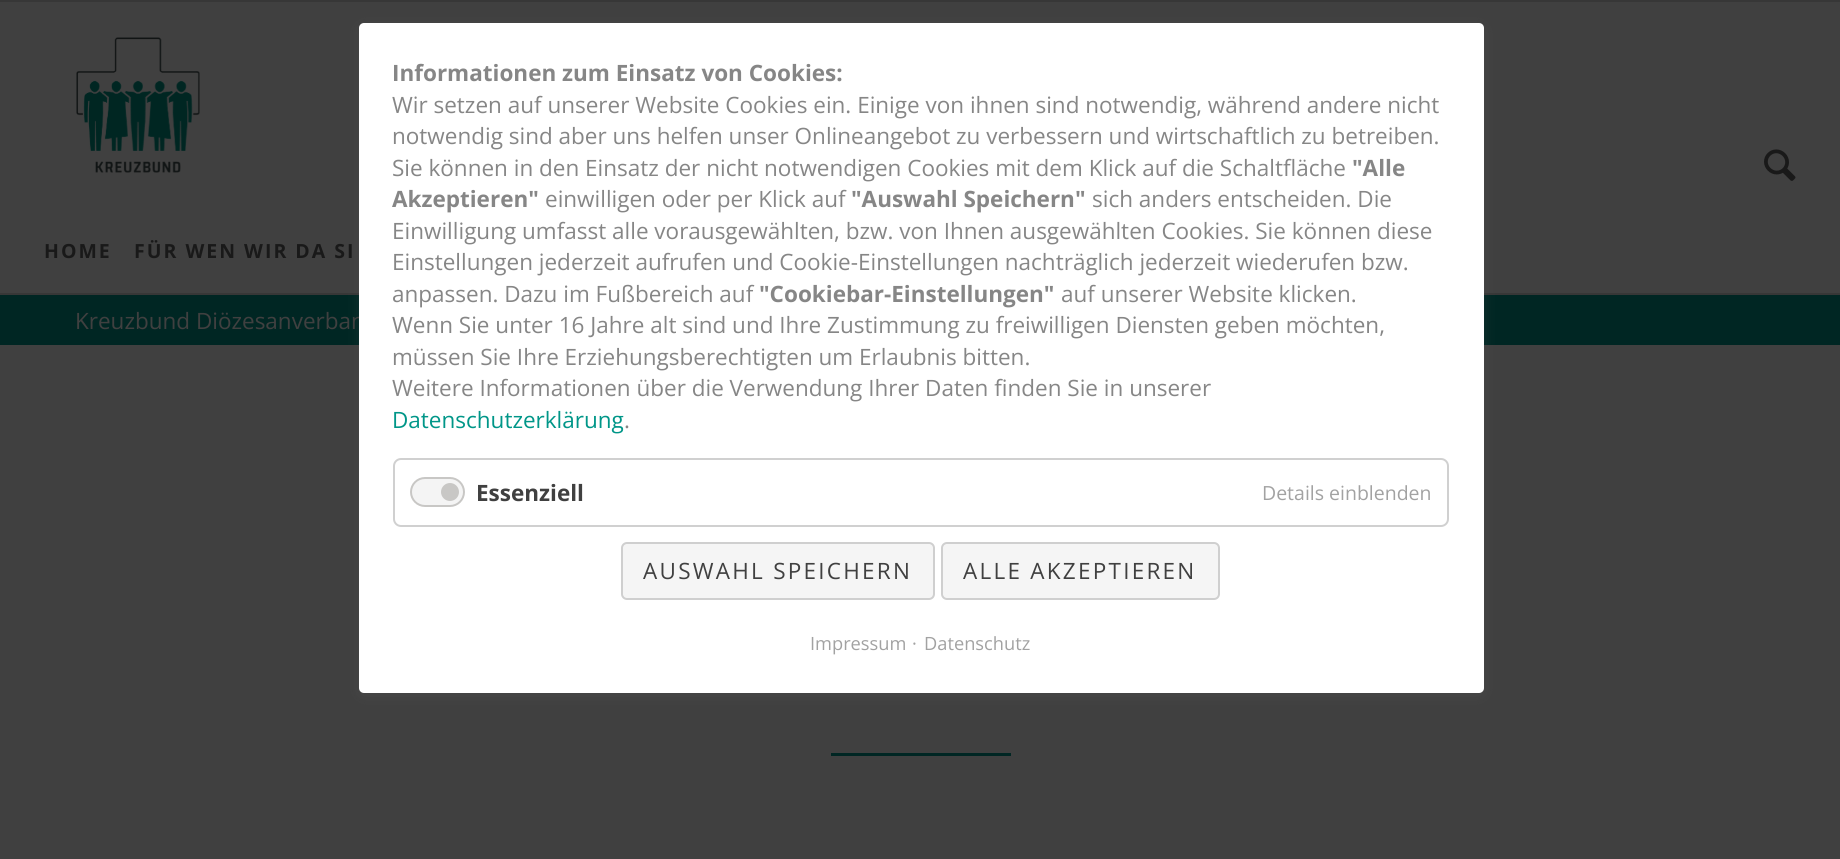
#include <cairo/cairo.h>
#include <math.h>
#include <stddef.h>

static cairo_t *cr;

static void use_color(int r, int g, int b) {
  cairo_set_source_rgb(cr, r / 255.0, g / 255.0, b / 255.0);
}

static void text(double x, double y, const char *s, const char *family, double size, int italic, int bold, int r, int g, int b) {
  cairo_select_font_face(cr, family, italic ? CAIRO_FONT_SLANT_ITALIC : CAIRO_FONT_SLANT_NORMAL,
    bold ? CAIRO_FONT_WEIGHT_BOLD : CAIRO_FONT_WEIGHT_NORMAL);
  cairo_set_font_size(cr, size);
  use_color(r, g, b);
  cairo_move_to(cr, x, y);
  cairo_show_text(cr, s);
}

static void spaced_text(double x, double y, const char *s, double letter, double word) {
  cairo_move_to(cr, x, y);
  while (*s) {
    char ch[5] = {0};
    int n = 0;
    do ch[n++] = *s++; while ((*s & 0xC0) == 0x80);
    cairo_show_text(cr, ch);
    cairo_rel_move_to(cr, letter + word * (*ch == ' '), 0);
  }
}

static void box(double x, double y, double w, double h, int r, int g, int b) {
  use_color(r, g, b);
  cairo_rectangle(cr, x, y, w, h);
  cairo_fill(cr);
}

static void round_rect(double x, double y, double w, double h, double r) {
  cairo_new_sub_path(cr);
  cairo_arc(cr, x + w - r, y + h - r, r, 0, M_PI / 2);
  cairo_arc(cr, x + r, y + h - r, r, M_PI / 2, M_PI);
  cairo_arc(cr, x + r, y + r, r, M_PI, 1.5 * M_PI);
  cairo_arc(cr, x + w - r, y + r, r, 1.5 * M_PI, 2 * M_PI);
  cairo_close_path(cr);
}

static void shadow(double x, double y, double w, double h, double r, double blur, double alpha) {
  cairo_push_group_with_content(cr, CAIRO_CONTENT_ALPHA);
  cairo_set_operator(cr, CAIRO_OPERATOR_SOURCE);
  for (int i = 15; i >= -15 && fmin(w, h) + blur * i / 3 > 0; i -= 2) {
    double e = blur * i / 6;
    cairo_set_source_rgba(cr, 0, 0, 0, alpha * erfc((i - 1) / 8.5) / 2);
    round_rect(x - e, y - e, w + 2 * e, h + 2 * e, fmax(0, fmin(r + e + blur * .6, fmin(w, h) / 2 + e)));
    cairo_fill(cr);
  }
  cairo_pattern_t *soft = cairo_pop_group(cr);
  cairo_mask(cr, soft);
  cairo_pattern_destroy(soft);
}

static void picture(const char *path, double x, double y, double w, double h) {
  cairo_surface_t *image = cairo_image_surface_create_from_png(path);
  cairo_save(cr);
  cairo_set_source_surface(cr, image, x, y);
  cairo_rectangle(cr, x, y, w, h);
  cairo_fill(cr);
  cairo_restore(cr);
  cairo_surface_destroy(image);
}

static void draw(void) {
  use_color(64, 64, 64);
  cairo_paint(cr);
  box(0, 0, 1840, 2, 55, 55, 55);
  box(0, 293, 1840, 2, 55, 55, 55);
  picture("img_01.png", 76, 37, 124, 136);
  picture("img_02.png", 1764, 149, 32, 32);
  box(0, 295, 1840, 50, 0, 38, 35);
  box(831, 753, 180, 3, 0, 38, 35);
  use_color(99, 99, 99);
  shadow(359, 26, 1125, 670, 5, 6, 0.2);
  cairo_select_font_face(cr, "Open Sans", CAIRO_FONT_SLANT_NORMAL, CAIRO_FONT_WEIGHT_BOLD);
  cairo_set_font_size(cr, 19.5);
  use_color(25, 25, 25);
  spaced_text(44, 258, "HOME", 2, 0);
  spaced_text(134, 258, "FÜR WEN WIR DA SI", 2, 0);
  text(75, 329, "Kreuzbund Diözesanverban", "Open Sans", 22.5, 0, 0, 64, 64, 64);
  use_color(255, 255, 255);
  round_rect(359, 23, 1125, 670, 5);
  cairo_fill(cr);
  text(392, 81, "Informationen zum Einsatz von Cookies:", "Open Sans", 22.5, 0, 1, 134, 134, 134);
  text(392, 113, "Wir setzen auf unserer Website Cookies ein. Einige von ihnen sind notwendig, während andere nicht", "Open Sans", 22.5, 0, 0, 134, 134, 134);
  text(392, 144, "notwendig sind aber uns helfen unser Onlineangebot zu verbessern und wirtschaftlich zu betreiben.", "Open Sans", 22.5, 0, 0, 134, 134, 134);
  text(392, 176, "Sie können in den Einsatz der nicht notwendigen Cookies mit dem Klick auf die Schaltfläche", "Open Sans", 22.5, 0, 0, 134, 134, 134);
  text(1352, 176, "\"Alle", "Open Sans", 22.5, 0, 1, 134, 134, 134);
  text(392, 207, "Akzeptieren\"", "Open Sans", 22.5, 0, 1, 134, 134, 134);
  text(545, 207, "einwilligen oder per Klick auf", "Open Sans", 22.5, 0, 0, 134, 134, 134);
  text(851, 207, "\"Auswahl Speichern\"", "Open Sans", 22.5, 0, 1, 134, 134, 134);
  text(1092, 207, "sich anders entscheiden. Die", "Open Sans", 22.5, 0, 0, 134, 134, 134);
  text(392, 239, "Einwilligung umfasst alle vorausgewählten, bzw. von Ihnen ausgewählten Cookies. Sie können diese", "Open Sans", 22.5, 0, 0, 134, 134, 134);
  text(392, 270, "Einstellungen jederzeit aufrufen und Cookie-Einstellungen nachträglich jederzeit wiederufen bzw.", "Open Sans", 22.5, 0, 0, 134, 134, 134);
  text(392, 302, "anpassen. Dazu im Fußbereich auf", "Open Sans", 22.5, 0, 0, 134, 134, 134);
  text(759, 302, "\"Cookiebar-Einstellungen\"", "Open Sans", 22.5, 0, 1, 134, 134, 134);
  text(1061, 302, "auf unserer Website klicken.", "Open Sans", 22.5, 0, 0, 134, 134, 134);
  text(392, 333, "Wenn Sie unter 16 Jahre alt sind und Ihre Zustimmung zu freiwilligen Diensten geben möchten,", "Open Sans", 22.5, 0, 0, 134, 134, 134);
  text(392, 365, "müssen Sie Ihre Erziehungsberechtigten um Erlaubnis bitten.", "Open Sans", 22.5, 0, 0, 134, 134, 134);
  text(392, 396, "Weitere Informationen über die Verwendung Ihrer Daten finden Sie in unserer", "Open Sans", 22.5, 0, 0, 134, 134, 134);
  text(392, 428, "Datenschutzerklärung", "Open Sans", 22.5, 0, 0, 0, 150, 136);
  text(624, 428, ".", "Open Sans", 22.5, 0, 0, 134, 134, 134);
  round_rect(394, 459, 1054, 67, 7);
  use_color(208, 208, 208);
  cairo_stroke(cr);
  use_color(244, 244, 244);
  round_rect(411, 478, 53, 28, 14);
  cairo_fill_preserve(cr);
  use_color(200, 199, 197);
  cairo_stroke(cr);
  cairo_arc(cr, 450, 492, 9, 0, 2 * M_PI);
  cairo_fill(cr);
  text(476, 501, "Essenziell", "Open Sans", 22.5, 0, 1, 64, 64, 64);
  text(1262, 500, "Details einblenden", "Open Sans", 19.5, 0, 0, 162, 162, 162);
  use_color(245, 245, 245);
  round_rect(622, 543, 312, 56, 5);
  cairo_fill_preserve(cr);
  use_color(207, 207, 207);
  cairo_stroke(cr);
  cairo_set_font_size(cr, 22.5);
  use_color(64, 64, 64);
  spaced_text(643, 579, "AUSWAHL SPEICHERN", 2.25, 0);
  use_color(245, 245, 245);
  round_rect(942, 543, 277, 56, 5);
  cairo_fill_preserve(cr);
  use_color(207, 207, 207);
  cairo_stroke(cr);
  use_color(64, 64, 64);
  spaced_text(963, 579, "ALLE AKZEPTIEREN", 2.25, 0);
  text(810, 650, "Impressum", "Open Sans", 18.25, 0, 0, 162, 162, 162);
  text(912, 650, "·", "Open Sans", 18.25, 0, 0, 162, 162, 162);
  text(924, 650, "Datenschutz", "Open Sans", 18.25, 0, 0, 162, 162, 162);
}

int main(void) {
  cairo_surface_t *surface = cairo_image_surface_create(CAIRO_FORMAT_RGB24, 1840, 859);
  cr = cairo_create(surface);
  cairo_font_options_t *options = cairo_font_options_create();
  cairo_font_options_set_hint_metrics(options, CAIRO_HINT_METRICS_OFF);
  cairo_font_options_set_hint_style(options, CAIRO_HINT_STYLE_NONE);
  cairo_set_font_options(cr, options);
  cairo_set_miter_limit(cr, 4);
  draw();
  cairo_surface_write_to_png(surface, "out.png");
  cairo_font_options_destroy(options);
  cairo_destroy(cr);
  cairo_surface_destroy(surface);
  return 0;
}
